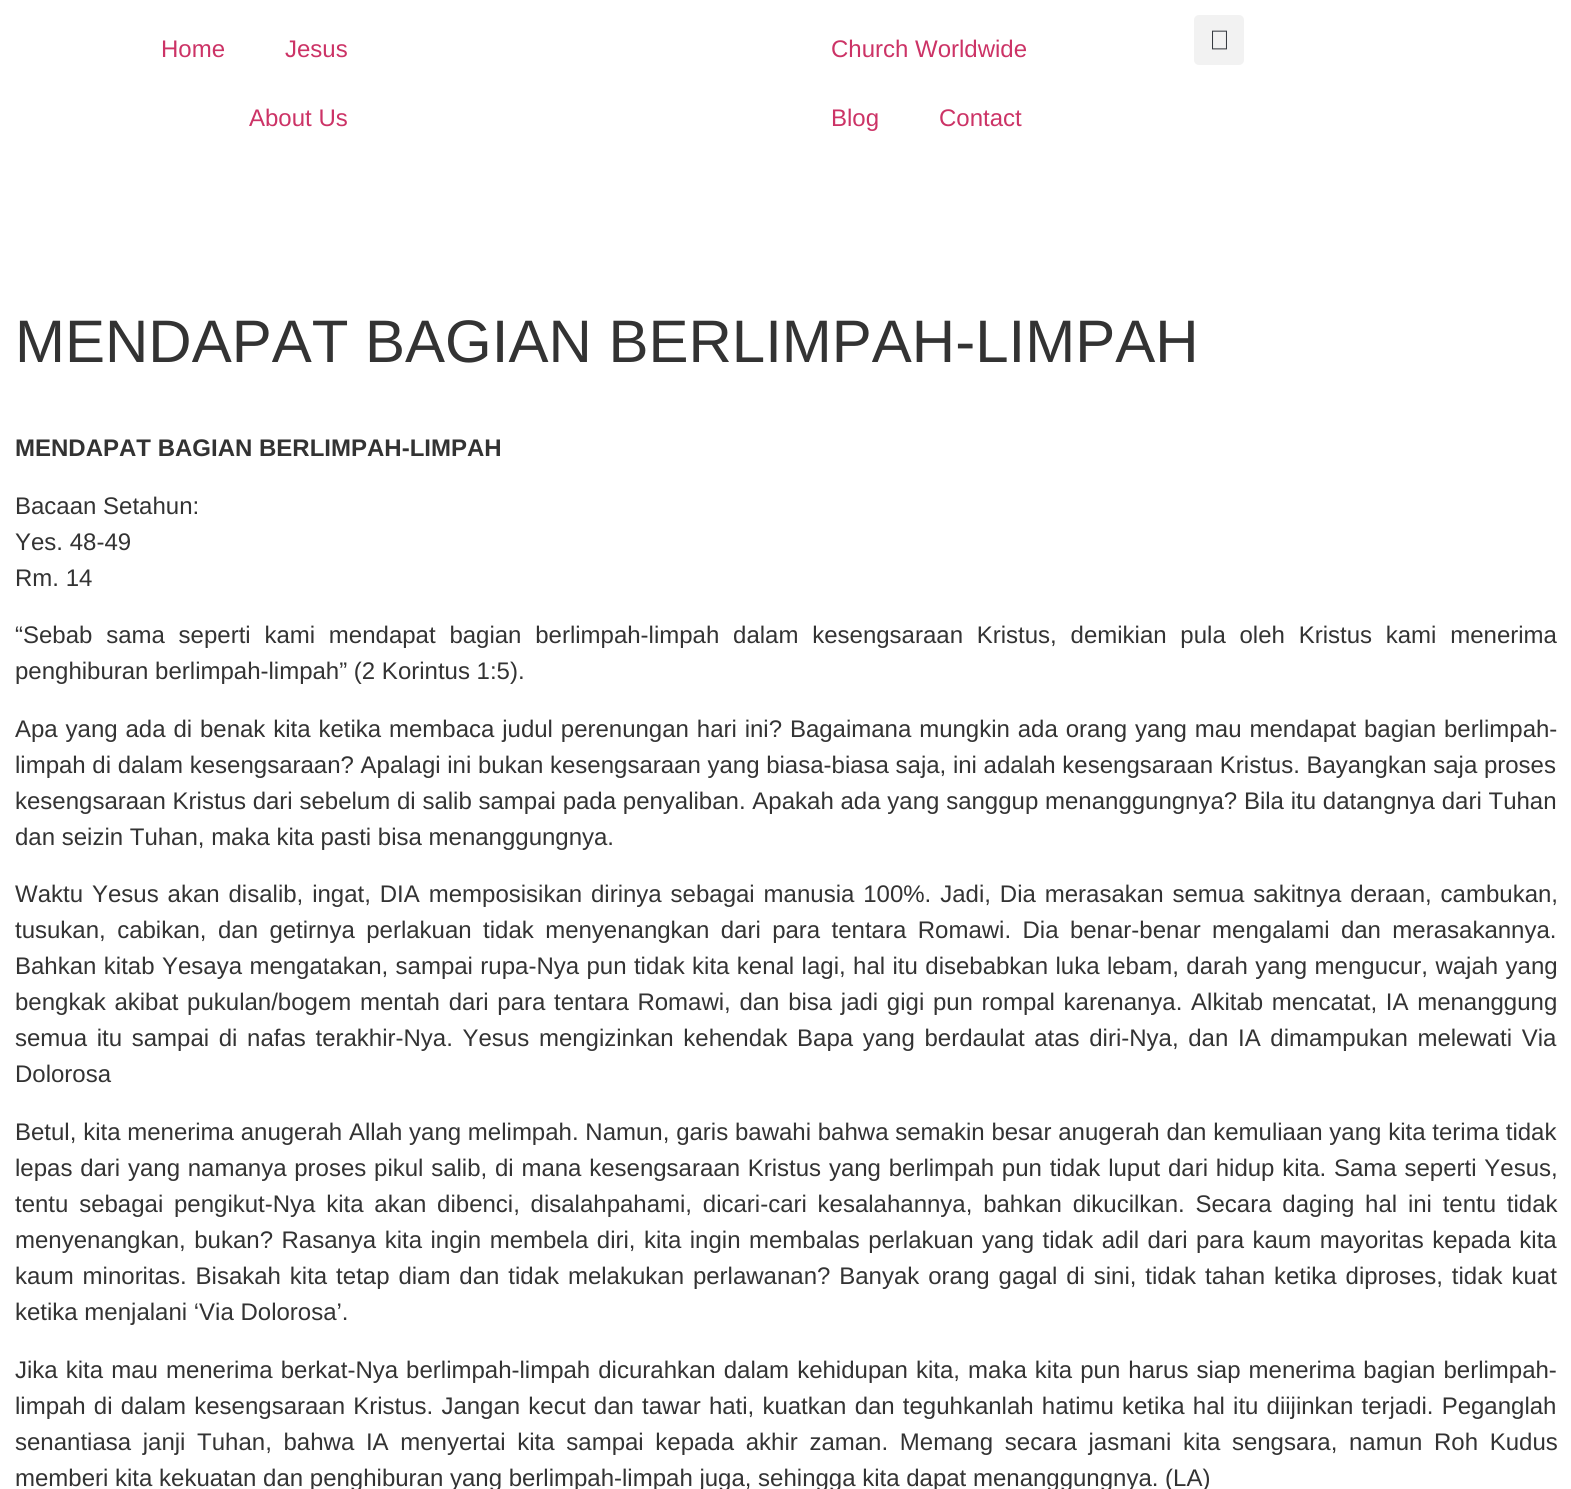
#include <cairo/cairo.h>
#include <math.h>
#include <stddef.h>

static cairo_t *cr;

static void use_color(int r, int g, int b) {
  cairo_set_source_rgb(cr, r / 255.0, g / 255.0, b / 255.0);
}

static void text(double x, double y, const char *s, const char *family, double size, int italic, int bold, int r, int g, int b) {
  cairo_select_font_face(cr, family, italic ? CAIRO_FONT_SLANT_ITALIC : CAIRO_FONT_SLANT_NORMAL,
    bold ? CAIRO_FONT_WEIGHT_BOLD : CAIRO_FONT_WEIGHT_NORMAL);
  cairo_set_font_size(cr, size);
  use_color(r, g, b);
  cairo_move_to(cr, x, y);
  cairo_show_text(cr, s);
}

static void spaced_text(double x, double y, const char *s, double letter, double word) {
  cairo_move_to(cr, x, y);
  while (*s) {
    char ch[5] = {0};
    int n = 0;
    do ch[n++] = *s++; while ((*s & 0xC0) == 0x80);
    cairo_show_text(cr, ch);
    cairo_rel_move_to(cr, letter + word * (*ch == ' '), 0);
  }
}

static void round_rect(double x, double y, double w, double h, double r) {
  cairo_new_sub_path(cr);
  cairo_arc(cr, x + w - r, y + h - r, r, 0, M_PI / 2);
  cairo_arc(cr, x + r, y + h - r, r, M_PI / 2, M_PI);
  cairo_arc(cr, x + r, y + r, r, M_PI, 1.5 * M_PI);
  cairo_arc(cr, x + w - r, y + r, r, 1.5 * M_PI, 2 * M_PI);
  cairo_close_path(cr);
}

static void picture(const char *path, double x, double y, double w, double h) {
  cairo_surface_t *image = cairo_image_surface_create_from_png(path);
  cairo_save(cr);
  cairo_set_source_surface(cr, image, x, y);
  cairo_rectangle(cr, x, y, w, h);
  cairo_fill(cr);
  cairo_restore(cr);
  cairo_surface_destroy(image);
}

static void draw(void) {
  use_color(255, 255, 255);
  cairo_paint(cr);
  use_color(242, 242, 242);
  round_rect(1194, 15, 50, 50, 5);
  cairo_fill(cr);
  picture("img_01.png", 1212, 30, 15, 20);
  text(161, 57, "Home", "Liberation Sans", 24, 0, 0, 204, 51, 102);
  text(285, 57, "Jesus", "Liberation Sans", 24, 0, 0, 204, 51, 102);
  text(249, 126, "About Us", "Liberation Sans", 24, 0, 0, 204, 51, 102);
  text(831, 57, "Church Worldwide", "Liberation Sans", 24, 0, 0, 204, 51, 102);
  text(831, 126, "Blog", "Liberation Sans", 24, 0, 0, 204, 51, 102);
  text(939, 126, "Contact", "Liberation Sans", 24, 0, 0, 204, 51, 102);
  text(15, 362, "MENDAPAT BAGIAN BERLIMPAH-LIMPAH", "Liberation Sans", 60, 0, 0, 51, 51, 51);
  text(15, 456, "MENDAPAT BAGIAN BERLIMPAH-LIMPAH", "Liberation Sans", 24, 0, 1, 51, 51, 51);
  text(15, 514, "Bacaan Setahun:", "Liberation Sans", 24, 0, 0, 51, 51, 51);
  text(15, 550, "Yes. 48-49", "Liberation Sans", 24, 0, 0, 51, 51, 51);
  text(15, 586, "Rm. 14", "Liberation Sans", 24, 0, 0, 51, 51, 51);
  spaced_text(15, 643, "“Sebab sama seperti kami mendapat bagian berlimpah-limpah dalam kesengsaraan Kristus, demikian pula oleh Kristus kami menerima", 0, 7.1);
  text(15, 679, "penghiburan berlimpah-limpah” (2 Korintus 1:5).", "Liberation Sans", 24, 0, 0, 51, 51, 51);
  spaced_text(15, 737, "Apa yang ada di benak kita ketika membaca judul perenungan hari ini? Bagaimana mungkin ada orang yang mau mendapat bagian berlimpah-", 0, 1.2);
  text(15, 773, "limpah di dalam kesengsaraan? Apalagi ini bukan kesengsaraan yang biasa-biasa saja, ini adalah kesengsaraan Kristus. Bayangkan saja proses", "Liberation Sans", 24, 0, 0, 51, 51, 51);
  spaced_text(15, 809, "kesengsaraan Kristus dari sebelum di salib sampai pada penyaliban. Apakah ada yang sanggup menanggungnya? Bila itu datangnya dari Tuhan", 0, 0.1);
  text(15, 845, "dan seizin Tuhan, maka kita pasti bisa menanggungnya.", "Liberation Sans", 24, 0, 0, 51, 51, 51);
  spaced_text(15, 902, "Waktu Yesus akan disalib, ingat, DIA memposisikan dirinya sebagai manusia 100%. Jadi, Dia merasakan semua sakitnya deraan, cambukan,", 0, 2.25);
  spaced_text(15, 938, "tusukan, cabikan, dan getirnya perlakuan tidak menyenangkan dari para tentara Romawi. Dia benar-benar mengalami dan merasakannya.", 0, 4.75);
  spaced_text(15, 974, "Bahkan kitab Yesaya mengatakan, sampai rupa-Nya pun tidak kita kenal lagi, hal itu disebabkan luka lebam, darah yang mengucur, wajah yang", 0, 0.75);
  spaced_text(15, 1010, "bengkak akibat pukulan/bogem mentah dari para tentara Romawi, dan bisa jadi gigi pun rompal karenanya. Alkitab mencatat, IA menanggung", 0, 2);
  spaced_text(15, 1046, "semua itu sampai di nafas terakhir-Nya. Yesus mengizinkan kehendak Bapa yang berdaulat atas diri-Nya, dan IA dimampukan melewati Via", 0, 3);
  text(15, 1082, "Dolorosa", "Liberation Sans", 24, 0, 0, 51, 51, 51);
  spaced_text(15, 1140, "Betul, kita menerima anugerah Allah yang melimpah. Namun, garis bawahi bahwa semakin besar anugerah dan kemuliaan yang kita terima tidak", 0, 0.1);
  spaced_text(15, 1176, "lepas dari yang namanya proses pikul salib, di mana kesengsaraan Kristus yang berlimpah pun tidak luput dari hidup kita. Sama seperti Yesus,", 0, 1.1);
  spaced_text(15, 1212, "tentu sebagai pengikut-Nya kita akan dibenci, disalahpahami, dicari-cari kesalahannya, bahkan dikucilkan. Secara daging hal ini tentu tidak", 0, 4.1);
  spaced_text(15, 1248, "menyenangkan, bukan? Rasanya kita ingin membela diri, kita ingin membalas perlakuan yang tidak adil dari para kaum mayoritas kepada kita", 0, 1.8);
  spaced_text(15, 1284, "kaum minoritas. Bisakah kita tetap diam dan tidak melakukan perlawanan? Banyak orang gagal di sini, tidak tahan ketika diproses, tidak kuat", 0, 2.25);
  text(15, 1320, "ketika menjalani ‘Via Dolorosa’.", "Liberation Sans", 24, 0, 0, 51, 51, 51);
  spaced_text(15, 1378, "Jika kita mau menerima berkat-Nya berlimpah-limpah dicurahkan dalam kehidupan kita, maka kita pun harus siap menerima bagian berlimpah-", 0, 1.4);
  spaced_text(15, 1414, "limpah di dalam kesengsaraan Kristus. Jangan kecut dan tawar hati, kuatkan dan teguhkanlah hatimu ketika hal itu diijinkan terjadi. Peganglah", 0, 1.5);
  spaced_text(15, 1450, "senantiasa janji Tuhan, bahwa IA menyertai kita sampai kepada akhir zaman. Memang secara jasmani kita sengsara, namun Roh Kudus", 0, 5);
  text(15, 1486, "memberi kita kekuatan dan penghiburan yang berlimpah-limpah juga, sehingga kita dapat menanggungnya. (LA)", "Liberation Sans", 24, 0, 0, 51, 51, 51);
}

int main(void) {
  cairo_surface_t *surface = cairo_image_surface_create(CAIRO_FORMAT_RGB24, 1571, 1489);
  cr = cairo_create(surface);
  cairo_font_options_t *options = cairo_font_options_create();
  cairo_font_options_set_hint_metrics(options, CAIRO_HINT_METRICS_OFF);
  cairo_font_options_set_hint_style(options, CAIRO_HINT_STYLE_NONE);
  cairo_set_font_options(cr, options);
  cairo_set_miter_limit(cr, 4);
  draw();
  cairo_surface_write_to_png(surface, "out.png");
  cairo_font_options_destroy(options);
  cairo_destroy(cr);
  cairo_surface_destroy(surface);
  return 0;
}
